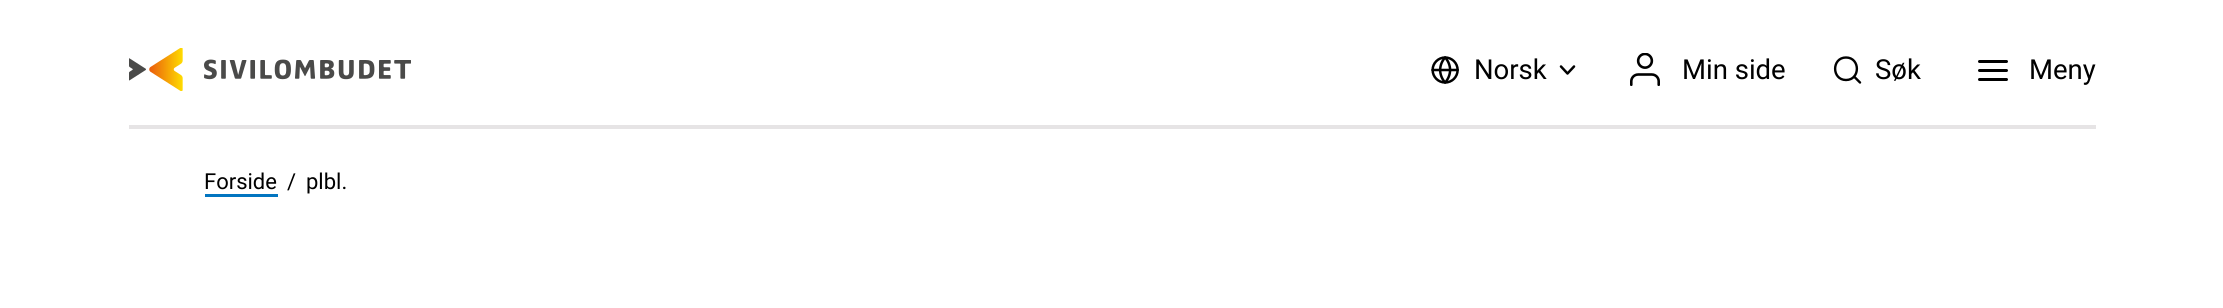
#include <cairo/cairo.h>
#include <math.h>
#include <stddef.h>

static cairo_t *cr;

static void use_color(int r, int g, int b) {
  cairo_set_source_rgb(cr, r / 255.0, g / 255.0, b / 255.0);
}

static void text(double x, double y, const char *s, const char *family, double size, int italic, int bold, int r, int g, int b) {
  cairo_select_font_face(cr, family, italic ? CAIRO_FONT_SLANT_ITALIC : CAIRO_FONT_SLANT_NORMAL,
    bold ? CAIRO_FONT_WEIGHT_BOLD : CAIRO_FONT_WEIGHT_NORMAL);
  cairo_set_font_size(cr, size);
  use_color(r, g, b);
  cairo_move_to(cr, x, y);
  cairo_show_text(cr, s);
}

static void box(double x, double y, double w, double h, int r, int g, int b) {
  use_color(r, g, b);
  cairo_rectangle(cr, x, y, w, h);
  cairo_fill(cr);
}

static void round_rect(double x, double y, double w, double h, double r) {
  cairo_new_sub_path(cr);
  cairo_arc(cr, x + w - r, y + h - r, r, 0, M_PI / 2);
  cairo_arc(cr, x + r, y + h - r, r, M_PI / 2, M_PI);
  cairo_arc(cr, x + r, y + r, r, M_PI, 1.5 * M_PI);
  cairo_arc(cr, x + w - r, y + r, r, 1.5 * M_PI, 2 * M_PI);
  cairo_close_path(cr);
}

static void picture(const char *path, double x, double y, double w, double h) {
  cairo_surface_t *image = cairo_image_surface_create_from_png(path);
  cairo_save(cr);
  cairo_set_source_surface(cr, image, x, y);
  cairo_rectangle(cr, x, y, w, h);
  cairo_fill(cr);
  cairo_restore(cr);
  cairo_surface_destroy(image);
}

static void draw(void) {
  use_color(255, 255, 255);
  cairo_paint(cr);
  box(129, 125, 1967, 4, 230, 228, 229);
  picture("img_01.png", 129, 48, 282, 43);
  picture("img_02.png", 1431, 56, 28, 28);
  cairo_new_path(cr);
  cairo_move_to(cr, 1561, 66.5);
  cairo_line_to(cr, 1567.5, 73.5);
  cairo_line_to(cr, 1574, 66.5);
  use_color(0, 0, 0);
  cairo_set_line_width(cr, 2.5);
  cairo_set_line_cap(cr, CAIRO_LINE_CAP_ROUND);
  cairo_set_line_join(cr, CAIRO_LINE_JOIN_ROUND);
  cairo_stroke(cr);
  picture("img_03.png", 1630, 53, 30, 33);
  cairo_new_path(cr);
  cairo_move_to(cr, 1846, 80);
  cairo_curve_to(cr, 1860.5, 80, 1860.5, 57.5, 1846, 57.5);
  cairo_curve_to(cr, 1831.5, 57.5, 1831.5, 80, 1846, 80);
  cairo_close_path(cr);
  cairo_move_to(cr, 1860, 82.5);
  cairo_line_to(cr, 1854, 76.5);
  cairo_set_line_width(cr, 2.4);
  cairo_stroke(cr);
  round_rect(1978, 60, 30, 3, 1.5);
  cairo_fill(cr);
  round_rect(1978, 69, 30, 3, 1.5);
  cairo_fill(cr);
  round_rect(1978, 78, 30, 3, 1.5);
  cairo_fill(cr);
  box(205, 194, 73, 3, 2, 117, 192);
  text(1474, 79, "Norsk", "Roboto", 27.5, 0, 0, 0, 0, 0);
  text(1682, 79, "Min side", "Roboto", 27.5, 0, 0, 0, 0, 0);
  text(1875, 79, "Søk", "Roboto", 27.5, 0, 0, 0, 0, 0);
  text(2029, 79, "Meny", "Roboto", 27.5, 0, 0, 0, 0, 0);
  text(204, 189, "Forside", "Roboto", 22, 0, 0, 0, 0, 0);
  text(287, 189, "/", "Roboto", 22, 0, 0, 0, 0, 0);
  text(306, 189, "plbl.", "Roboto", 22, 0, 0, 0, 0, 0);
}

int main(void) {
  cairo_surface_t *surface = cairo_image_surface_create(CAIRO_FORMAT_RGB24, 2223, 308);
  cr = cairo_create(surface);
  cairo_font_options_t *options = cairo_font_options_create();
  cairo_font_options_set_hint_metrics(options, CAIRO_HINT_METRICS_OFF);
  cairo_font_options_set_hint_style(options, CAIRO_HINT_STYLE_NONE);
  cairo_set_font_options(cr, options);
  cairo_set_miter_limit(cr, 4);
  draw();
  cairo_surface_write_to_png(surface, "out.png");
  cairo_font_options_destroy(options);
  cairo_destroy(cr);
  cairo_surface_destroy(surface);
  return 0;
}
